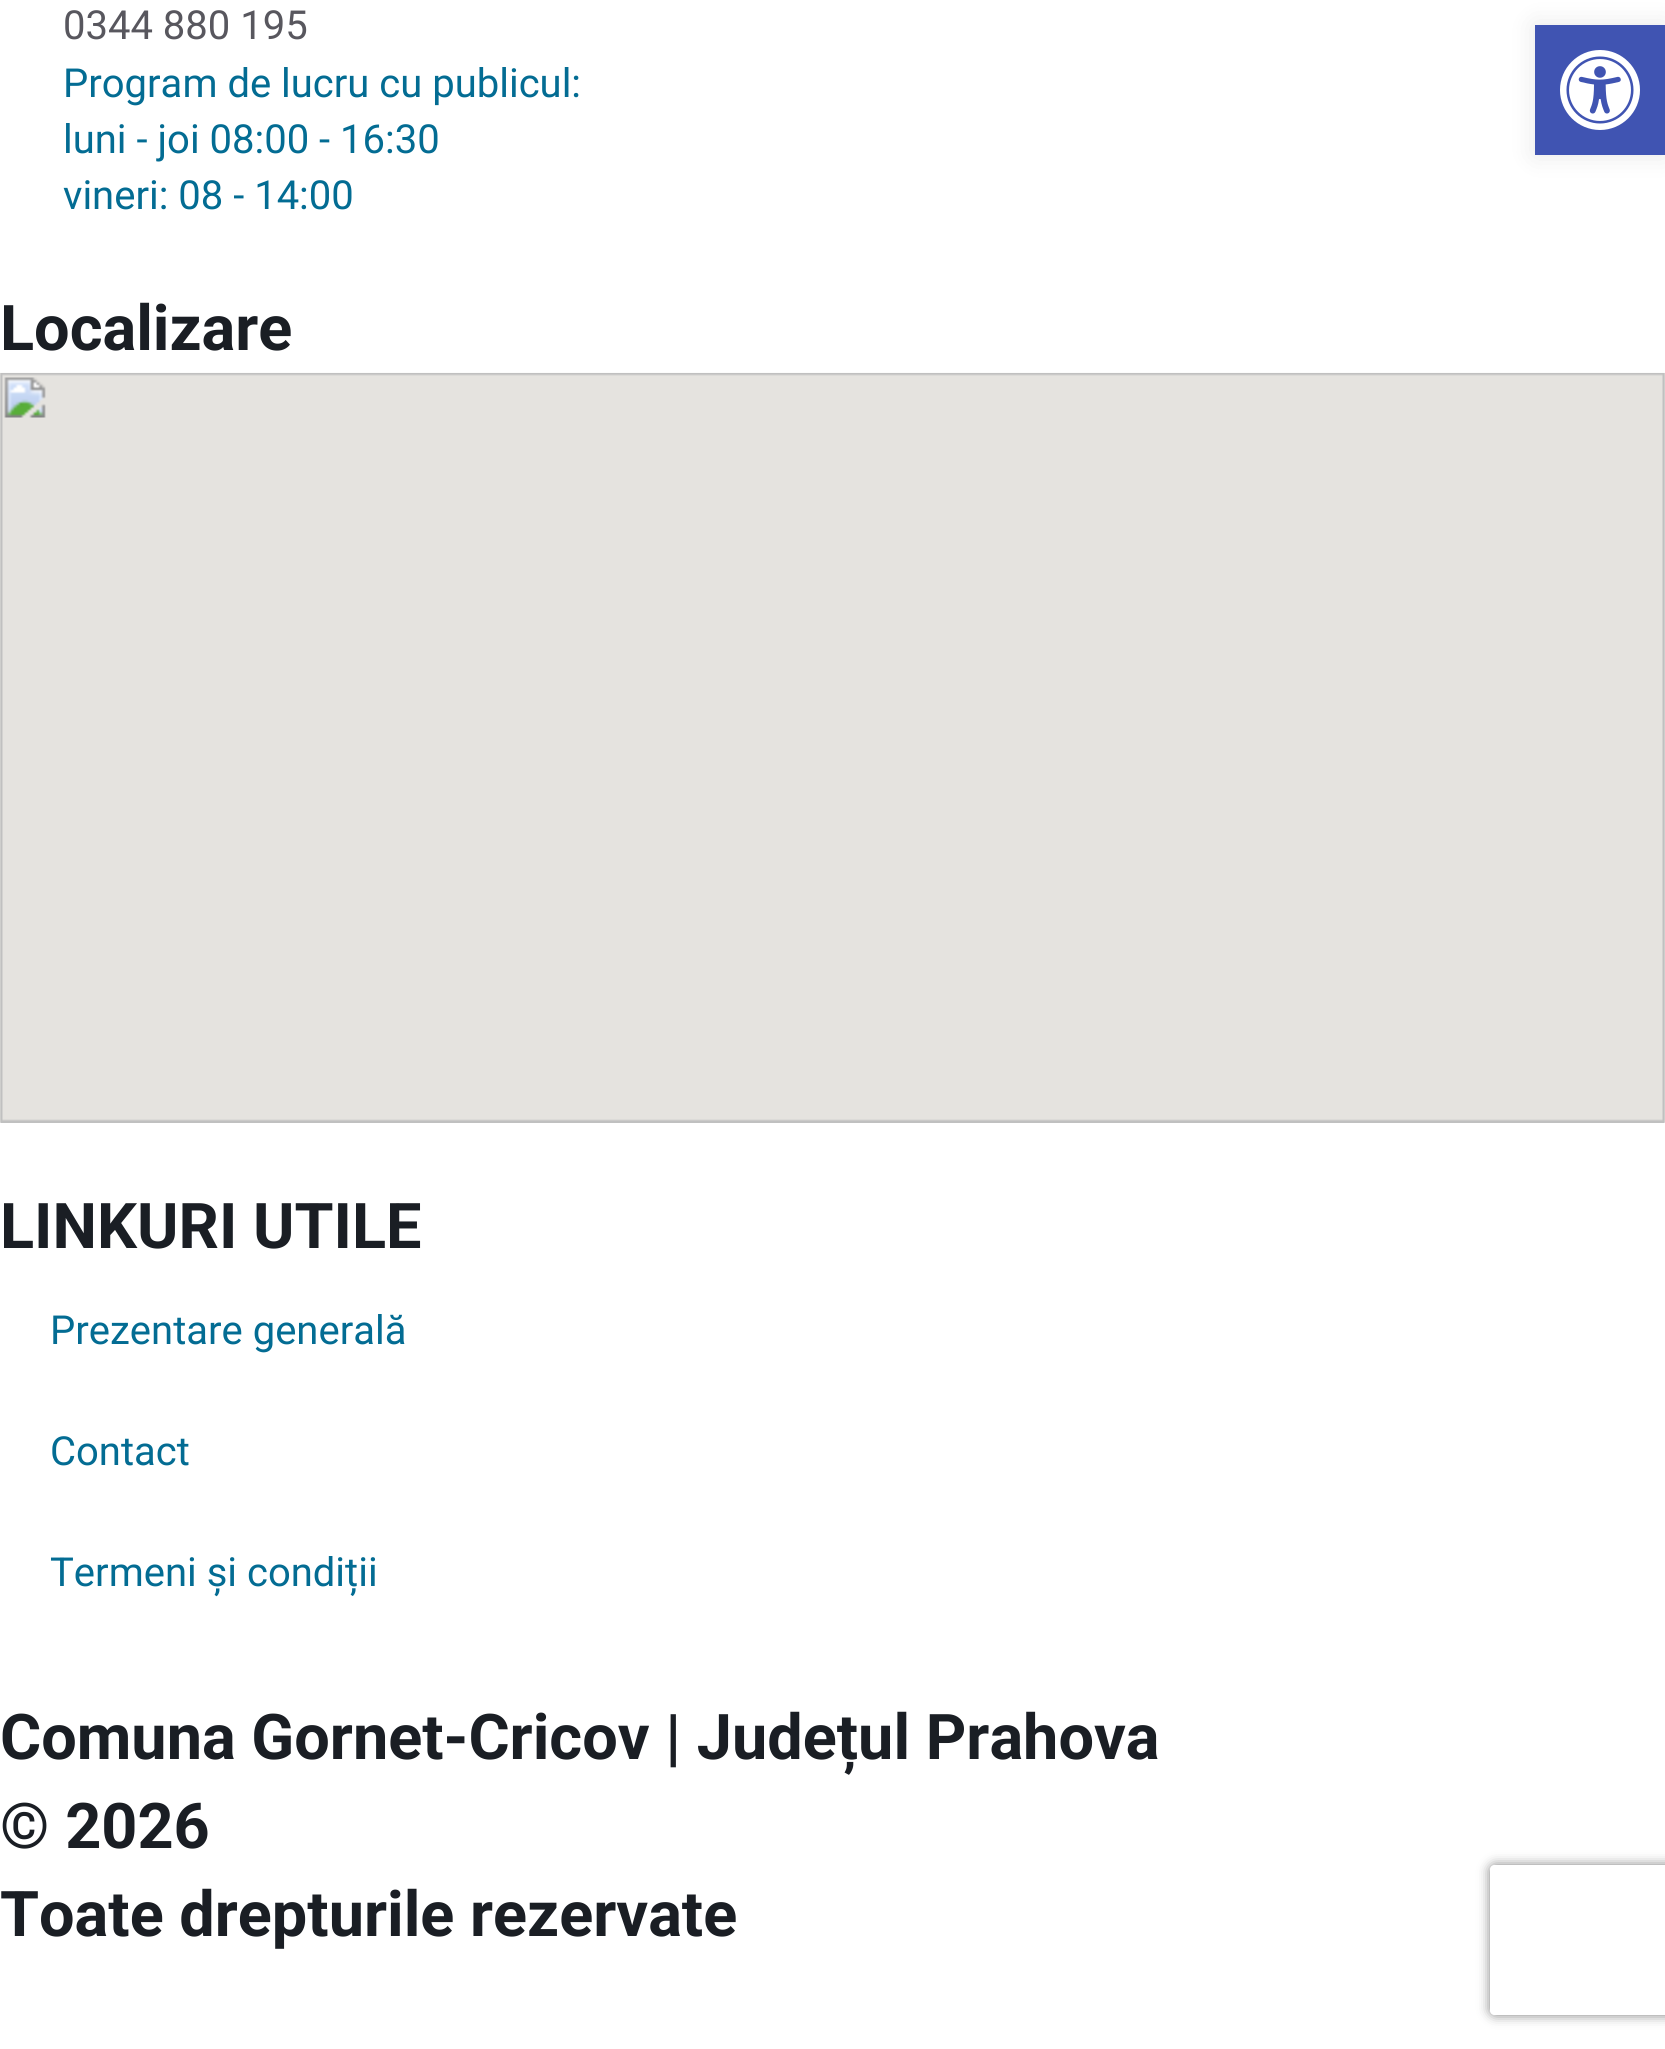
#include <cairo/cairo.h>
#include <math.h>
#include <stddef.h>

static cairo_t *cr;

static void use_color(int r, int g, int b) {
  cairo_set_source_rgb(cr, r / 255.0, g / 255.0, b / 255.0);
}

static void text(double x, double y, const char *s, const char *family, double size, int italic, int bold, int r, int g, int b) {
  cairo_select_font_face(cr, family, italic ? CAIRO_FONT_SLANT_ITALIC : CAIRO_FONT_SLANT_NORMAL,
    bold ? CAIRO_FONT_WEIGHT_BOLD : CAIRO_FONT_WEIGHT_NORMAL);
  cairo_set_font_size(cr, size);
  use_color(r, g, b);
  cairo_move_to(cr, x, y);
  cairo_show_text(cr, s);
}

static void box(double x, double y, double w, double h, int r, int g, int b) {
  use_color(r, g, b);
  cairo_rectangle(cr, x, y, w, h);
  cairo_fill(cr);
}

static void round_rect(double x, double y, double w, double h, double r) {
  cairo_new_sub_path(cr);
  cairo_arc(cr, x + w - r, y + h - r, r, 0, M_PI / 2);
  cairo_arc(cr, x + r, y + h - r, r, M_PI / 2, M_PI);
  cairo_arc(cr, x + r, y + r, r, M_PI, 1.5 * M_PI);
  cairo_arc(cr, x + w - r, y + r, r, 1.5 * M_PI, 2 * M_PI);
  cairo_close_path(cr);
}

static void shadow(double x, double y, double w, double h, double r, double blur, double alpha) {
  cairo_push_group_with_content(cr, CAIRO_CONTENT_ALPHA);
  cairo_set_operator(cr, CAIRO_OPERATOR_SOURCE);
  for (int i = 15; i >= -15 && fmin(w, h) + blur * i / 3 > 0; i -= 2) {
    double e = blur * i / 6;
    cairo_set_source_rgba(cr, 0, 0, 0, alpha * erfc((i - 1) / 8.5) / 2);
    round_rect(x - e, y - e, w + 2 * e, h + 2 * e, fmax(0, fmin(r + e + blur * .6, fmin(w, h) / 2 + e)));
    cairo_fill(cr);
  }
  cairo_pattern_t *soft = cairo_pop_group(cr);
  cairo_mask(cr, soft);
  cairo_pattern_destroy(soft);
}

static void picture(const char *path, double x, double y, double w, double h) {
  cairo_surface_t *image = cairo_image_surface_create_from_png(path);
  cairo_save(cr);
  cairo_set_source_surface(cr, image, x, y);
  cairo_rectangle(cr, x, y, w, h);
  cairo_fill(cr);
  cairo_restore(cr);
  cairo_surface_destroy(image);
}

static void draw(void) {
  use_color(255, 255, 255);
  cairo_paint(cr);
  picture("img_01.png", 0, 372, 1665, 751);
  use_color(0, 0, 0);
  shadow(1535, 25, 130, 130, 0, 12.5, 0.1);
  box(1535, 25, 130, 130, 64, 84, 178);
  picture("img_02.png", 1560, 50, 80, 80);
  cairo_save(cr);
  cairo_set_fill_rule(cr, CAIRO_FILL_RULE_EVEN_ODD);
  cairo_new_path(cr);
  cairo_move_to(cr, 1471, 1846);
  cairo_line_to(cr, 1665, 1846);
  cairo_line_to(cr, 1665, 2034);
  cairo_line_to(cr, 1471, 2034);
  cairo_close_path(cr);
  cairo_move_to(cr, 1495, 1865);
  cairo_line_to(cr, 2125, 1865);
  cairo_curve_to(cr, 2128, 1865, 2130, 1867, 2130, 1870);
  cairo_line_to(cr, 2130, 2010);
  cairo_curve_to(cr, 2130, 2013, 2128, 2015, 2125, 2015);
  cairo_line_to(cr, 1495, 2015);
  cairo_curve_to(cr, 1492, 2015, 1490, 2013, 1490, 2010);
  cairo_line_to(cr, 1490, 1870);
  cairo_curve_to(cr, 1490, 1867, 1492, 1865, 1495, 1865);
  cairo_close_path(cr);
  cairo_clip(cr);
  use_color(128, 128, 128);
  shadow(1490, 1865, 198, 150, 5, 6, 1);
  cairo_restore(cr);
  text(63, 39, "0344 880 195", "Roboto", 40, 0, 0, 88, 87, 94);
  text(63, 97, "Program de lucru cu publicul:", "Roboto", 40, 0, 0, 3, 108, 147);
  text(63, 153, "luni - joi 08:00 - 16:30", "Roboto", 40, 0, 0, 3, 108, 147);
  text(63, 209, "vineri: 08 - 14:00", "Roboto", 40, 0, 0, 3, 108, 147);
  text(0, 350, "Localizare", "Roboto", 63, 0, 1, 26, 30, 36);
  text(0, 1248, "LINKURI UTILE", "Roboto", 63, 0, 1, 26, 30, 36);
  text(50, 1344, "Prezentare generală", "Roboto", 40, 0, 0, 3, 108, 147);
  text(50, 1465, "Contact", "Roboto", 40, 0, 0, 3, 108, 147);
  text(50, 1586, "Termeni și condiții", "Roboto", 40, 0, 0, 3, 108, 147);
  text(0, 1759, "Comuna Gornet-Cricov | Județul Prahova", "Roboto", 63, 0, 1, 26, 30, 36);
  text(0, 1848, "© 2026", "Roboto", 63, 0, 1, 26, 30, 36);
  text(0, 1936, "Toate drepturile rezervate", "Roboto", 63, 0, 1, 26, 30, 36);
}

int main(void) {
  cairo_surface_t *surface = cairo_image_surface_create(CAIRO_FORMAT_RGB24, 1665, 2049);
  cr = cairo_create(surface);
  cairo_font_options_t *options = cairo_font_options_create();
  cairo_font_options_set_hint_metrics(options, CAIRO_HINT_METRICS_OFF);
  cairo_font_options_set_hint_style(options, CAIRO_HINT_STYLE_NONE);
  cairo_set_font_options(cr, options);
  cairo_set_miter_limit(cr, 4);
  draw();
  cairo_surface_write_to_png(surface, "out.png");
  cairo_font_options_destroy(options);
  cairo_destroy(cr);
  cairo_surface_destroy(surface);
  return 0;
}
